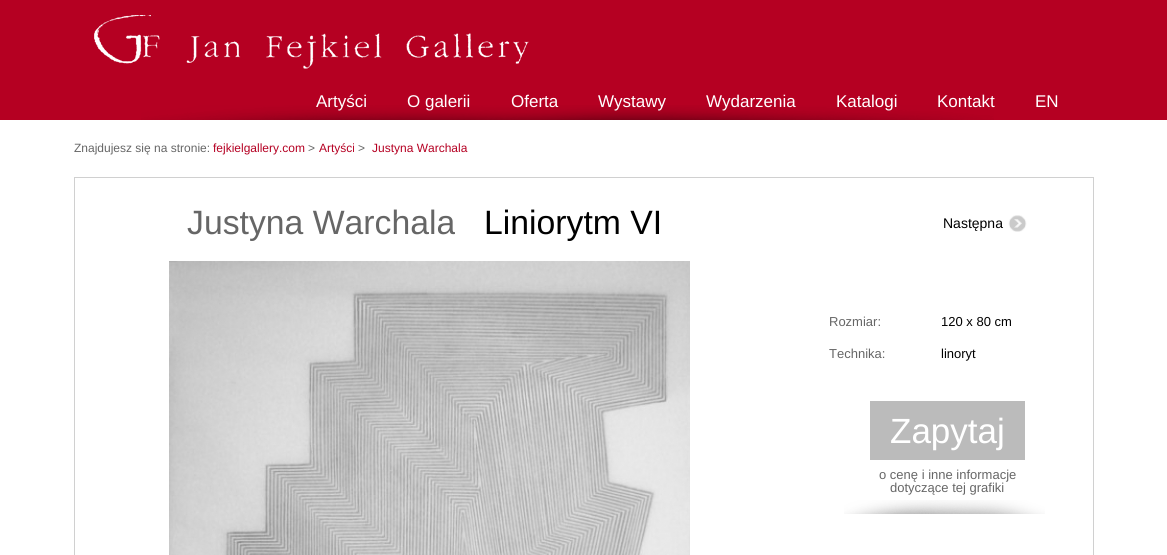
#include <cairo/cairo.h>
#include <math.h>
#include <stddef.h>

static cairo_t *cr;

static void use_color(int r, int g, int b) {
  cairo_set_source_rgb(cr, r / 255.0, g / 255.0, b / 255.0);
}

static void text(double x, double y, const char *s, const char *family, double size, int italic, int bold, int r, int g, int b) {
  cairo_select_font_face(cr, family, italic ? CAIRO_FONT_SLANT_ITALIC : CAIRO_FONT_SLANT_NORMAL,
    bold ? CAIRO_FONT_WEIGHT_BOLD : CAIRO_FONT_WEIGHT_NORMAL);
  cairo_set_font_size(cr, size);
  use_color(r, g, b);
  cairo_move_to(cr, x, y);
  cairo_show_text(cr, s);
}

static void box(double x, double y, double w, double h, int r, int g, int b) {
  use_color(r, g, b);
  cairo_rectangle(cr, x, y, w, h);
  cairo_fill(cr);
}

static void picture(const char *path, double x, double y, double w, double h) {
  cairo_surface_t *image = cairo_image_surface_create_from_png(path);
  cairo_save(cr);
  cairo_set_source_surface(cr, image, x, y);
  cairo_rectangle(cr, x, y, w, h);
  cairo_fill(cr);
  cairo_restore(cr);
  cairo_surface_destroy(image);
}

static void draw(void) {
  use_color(255, 255, 255);
  cairo_paint(cr);
  box(0, 0, 1167, 120, 181, 0, 34);
  picture("img_01.png", 141, 105, 853, 15);
  picture("img_02.png", 94, 15, 435, 54);
  cairo_rectangle(cr, 74.5, 177.5, 1019, 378);
  use_color(208, 208, 208);
  cairo_set_line_width(cr, 1);
  cairo_stroke(cr);
  picture("img_03.png", 1008, 215, 19, 17);
  picture("img_04.png", 169, 261, 521, 294);
  picture("img_05.png", 844, 500, 201, 14);
  box(870, 401, 155, 59, 187, 187, 187);
  text(316, 107, "Artyści", "Liberation Sans", 17, 0, 0, 255, 255, 255);
  text(407, 107, "O galerii", "Liberation Sans", 17, 0, 0, 255, 255, 255);
  text(511, 107, "Oferta", "Liberation Sans", 17, 0, 0, 255, 255, 255);
  text(598, 107, "Wystawy", "Liberation Sans", 17, 0, 0, 255, 255, 255);
  text(706, 107, "Wydarzenia", "Liberation Sans", 17, 0, 0, 255, 255, 255);
  text(836, 107, "Katalogi", "Liberation Sans", 17, 0, 0, 255, 255, 255);
  text(937, 107, "Kontakt", "Liberation Sans", 17, 0, 0, 255, 255, 255);
  text(1035, 107, "EN", "Liberation Sans", 17, 0, 0, 255, 255, 255);
  text(74, 152, "Znajdujesz się na stronie:", "Liberation Sans", 12, 0, 0, 102, 102, 102);
  text(213, 152, "fejkielgallery.com", "Liberation Sans", 12, 0, 0, 181, 0, 34);
  text(308, 152, ">", "Liberation Sans", 12, 0, 0, 102, 102, 102);
  text(319, 152, "Artyści", "Liberation Sans", 12, 0, 0, 181, 0, 34);
  text(358, 152, ">", "Liberation Sans", 12, 0, 0, 102, 102, 102);
  text(372, 152, "Justyna Warchala", "Liberation Sans", 12, 0, 0, 181, 0, 34);
  text(187, 234, "Justyna Warchala", "Liberation Sans", 33.75, 0, 0, 102, 102, 102);
  text(484, 234, "Liniorytm VI", "Liberation Sans", 33.75, 0, 0, 0, 0, 0);
  text(943, 228, "Następna", "Liberation Sans", 14, 0, 0, 0, 0, 0);
  text(829, 326, "Rozmiar:", "Liberation Sans", 13, 0, 0, 102, 102, 102);
  text(941, 326, "120 x 80 cm", "Liberation Sans", 13, 0, 0, 0, 0, 0);
  text(829, 358, "Technika:", "Liberation Sans", 13, 0, 0, 102, 102, 102);
  text(941, 358, "linoryt", "Liberation Sans", 13, 0, 0, 0, 0, 0);
  text(890, 443, "Zapytaj", "Liberation Sans", 35, 0, 0, 255, 255, 255);
  text(879, 479, "o cenę i inne informacje", "Liberation Sans", 13, 0, 0, 102, 102, 102);
  text(890, 492, "dotyczące tej grafiki", "Liberation Sans", 13, 0, 0, 102, 102, 102);
}

int main(void) {
  cairo_surface_t *surface = cairo_image_surface_create(CAIRO_FORMAT_RGB24, 1167, 555);
  cr = cairo_create(surface);
  cairo_font_options_t *options = cairo_font_options_create();
  cairo_font_options_set_hint_metrics(options, CAIRO_HINT_METRICS_OFF);
  cairo_font_options_set_hint_style(options, CAIRO_HINT_STYLE_NONE);
  cairo_set_font_options(cr, options);
  cairo_set_miter_limit(cr, 4);
  draw();
  cairo_surface_write_to_png(surface, "out.png");
  cairo_font_options_destroy(options);
  cairo_destroy(cr);
  cairo_surface_destroy(surface);
  return 0;
}
